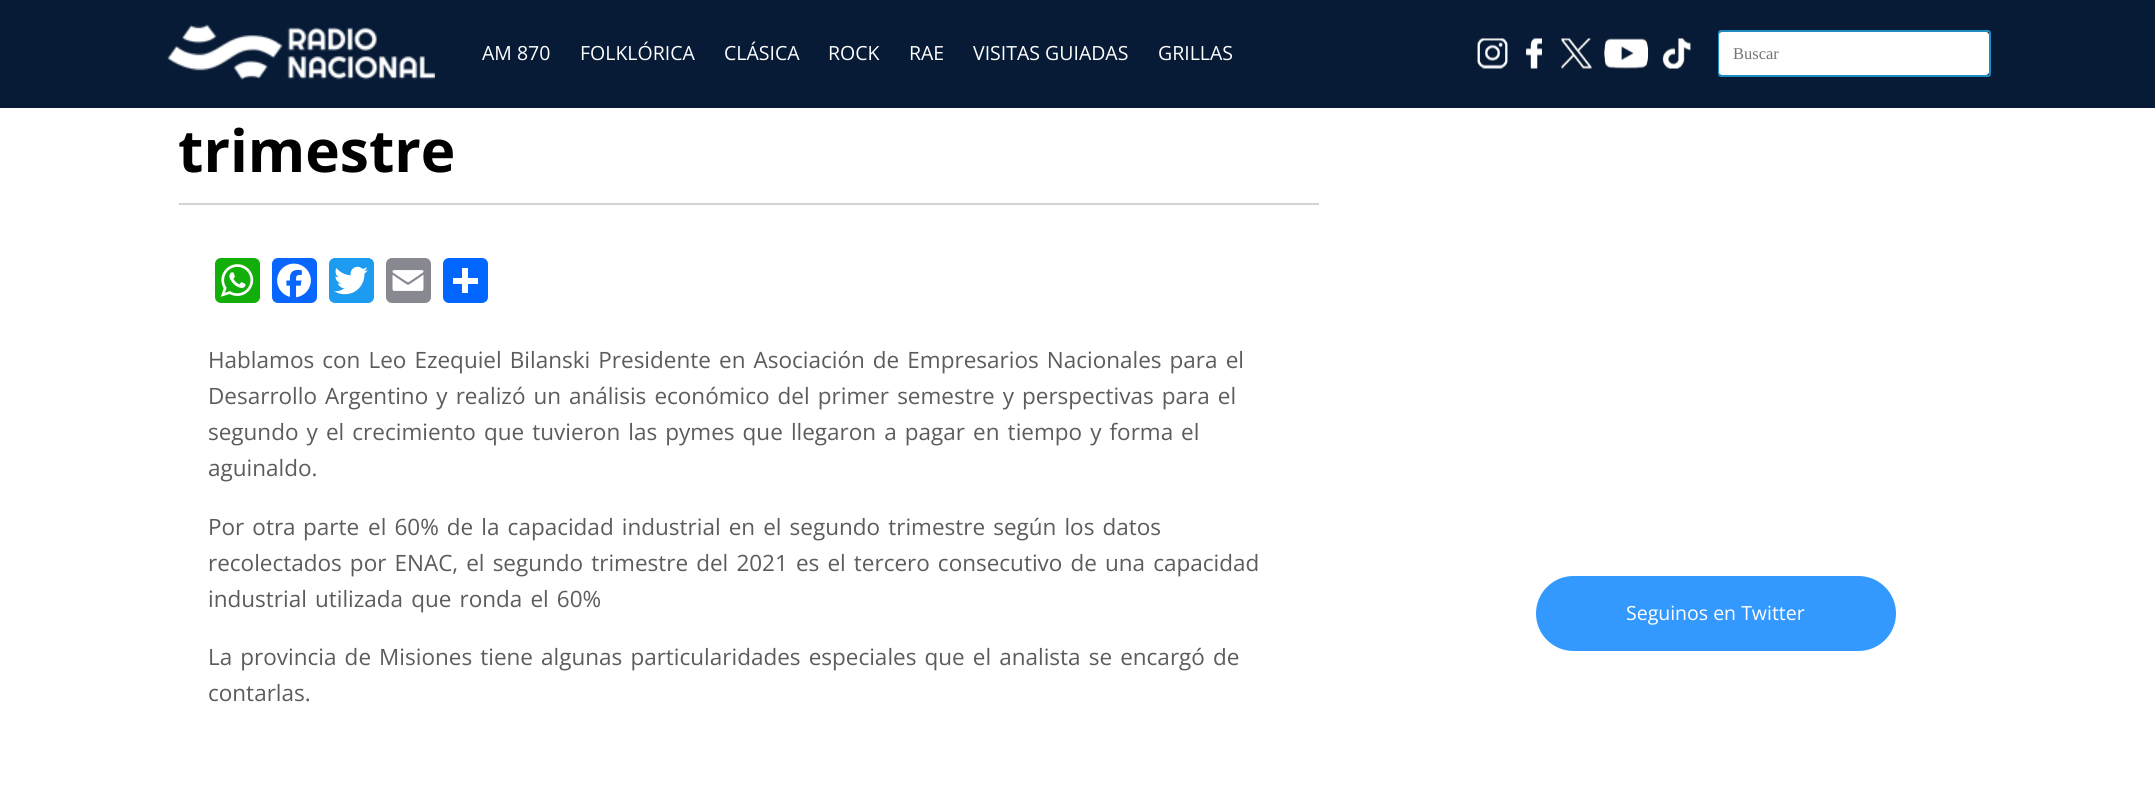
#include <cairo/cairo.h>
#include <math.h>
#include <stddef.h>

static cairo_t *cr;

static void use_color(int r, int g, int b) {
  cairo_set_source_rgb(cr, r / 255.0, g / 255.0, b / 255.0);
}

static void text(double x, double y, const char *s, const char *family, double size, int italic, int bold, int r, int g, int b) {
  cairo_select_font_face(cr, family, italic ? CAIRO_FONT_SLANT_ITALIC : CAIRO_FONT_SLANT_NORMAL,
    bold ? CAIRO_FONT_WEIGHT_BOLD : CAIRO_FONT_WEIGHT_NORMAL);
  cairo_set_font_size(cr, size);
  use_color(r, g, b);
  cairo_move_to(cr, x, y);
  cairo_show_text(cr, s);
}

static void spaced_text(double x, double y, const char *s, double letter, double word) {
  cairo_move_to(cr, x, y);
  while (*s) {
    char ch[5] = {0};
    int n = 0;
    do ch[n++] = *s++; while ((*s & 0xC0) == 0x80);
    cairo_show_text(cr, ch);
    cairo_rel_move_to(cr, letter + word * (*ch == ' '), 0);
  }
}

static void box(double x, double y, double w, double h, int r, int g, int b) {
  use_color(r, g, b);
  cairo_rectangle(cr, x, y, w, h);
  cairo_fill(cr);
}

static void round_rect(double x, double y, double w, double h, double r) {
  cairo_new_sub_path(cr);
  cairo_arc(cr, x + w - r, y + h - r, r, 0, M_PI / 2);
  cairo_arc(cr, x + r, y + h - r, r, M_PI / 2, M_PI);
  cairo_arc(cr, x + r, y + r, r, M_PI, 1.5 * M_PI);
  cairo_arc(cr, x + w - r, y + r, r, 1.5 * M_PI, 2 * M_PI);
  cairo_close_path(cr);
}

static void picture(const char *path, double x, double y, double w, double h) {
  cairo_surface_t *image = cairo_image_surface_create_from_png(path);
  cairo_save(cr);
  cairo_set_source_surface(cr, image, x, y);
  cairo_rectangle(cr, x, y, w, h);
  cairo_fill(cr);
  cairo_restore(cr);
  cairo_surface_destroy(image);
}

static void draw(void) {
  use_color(255, 255, 255);
  cairo_paint(cr);
  box(0, 0, 2155, 108, 7, 27, 54);
  picture("img_01.png", 167, 24, 268, 56);
  picture("img_02.png", 1477, 38, 31, 31);
  picture("img_03.png", 1526, 38, 16, 31);
  picture("img_04.png", 1561, 38, 31, 31);
  picture("img_05.png", 1604, 38, 45, 31);
  picture("img_06.png", 1662, 38, 29, 31);
  round_rect(1719, 31, 271, 45, 2);
  use_color(30, 140, 190);
  cairo_stroke(cr);
  use_color(255, 255, 255);
  round_rect(1719, 32, 270, 43, 3);
  cairo_fill(cr);
  box(179, 203, 1140, 2, 211, 211, 211);
  use_color(18, 175, 10);
  round_rect(215, 258, 45, 45, 6);
  cairo_fill(cr);
  picture("img_07.png", 220, 264, 34, 33);
  use_color(8, 102, 255);
  round_rect(272, 258, 45, 45, 6);
  cairo_fill(cr);
  picture("img_08.png", 277, 263, 34, 35);
  use_color(29, 155, 240);
  round_rect(329, 258, 45, 45, 6);
  cairo_fill(cr);
  picture("img_09.png", 334, 266, 34, 29);
  use_color(136, 137, 144);
  round_rect(386, 258, 45, 45, 6);
  cairo_fill(cr);
  picture("img_10.png", 392, 270, 32, 21);
  use_color(1, 102, 255);
  round_rect(443, 258, 45, 45, 6);
  cairo_fill(cr);
  box(462, 268, 6, 25, 255, 255, 255);
  box(453, 278, 25, 6, 255, 255, 255);
  use_color(51, 153, 255);
  round_rect(1536, 576, 360, 75, 37.5);
  cairo_fill(cr);
  text(482, 60, "AM 870", "Open Sans", 19.5, 0, 0, 255, 255, 255);
  text(580, 60, "FOLKLÓRICA", "Open Sans", 19.5, 0, 0, 255, 255, 255);
  text(724, 60, "CLÁSICA", "Open Sans", 19.5, 0, 0, 255, 255, 255);
  text(828, 60, "ROCK", "Open Sans", 19.5, 0, 0, 255, 255, 255);
  text(909, 60, "RAE", "Open Sans", 19.5, 0, 0, 255, 255, 255);
  text(973, 60, "VISITAS GUIADAS", "Open Sans", 19.5, 0, 0, 255, 255, 255);
  text(1158, 60, "GRILLAS", "Open Sans", 19.5, 0, 0, 255, 255, 255);
  text(1733, 59, "Buscar", "Liberation Serif", 16.5, 0, 0, 117, 117, 117);
  text(178, 172, "trimestre", "Open Sans", 58.5, 0, 1, 0, 0, 0);
  cairo_select_font_face(cr, "Open Sans", CAIRO_FONT_SLANT_NORMAL, CAIRO_FONT_WEIGHT_NORMAL);
  cairo_set_font_size(cr, 22.5);
  use_color(92, 92, 92);
  spaced_text(208, 368, "Hablamos con Leo Ezequiel Bilanski Presidente en Asociación de Empresarios Nacionales para el", 0, 2.25);
  spaced_text(208, 404, "Desarrollo Argentino y realizó un", 0, 2.25);
  spaced_text(569, 404, "análisis económico del primer semestre y perspectivas para el", 0, 2.25);
  spaced_text(208, 440, "segundo y el crecimiento que tuvieron las pymes que llegaron a pagar en tiempo y forma", 0, 2.25);
  text(1181, 440, "el", "Open Sans", 22.5, 0, 0, 92, 92, 92);
  text(208, 476, "aguinaldo.", "Open Sans", 22.5, 0, 0, 92, 92, 92);
  spaced_text(208, 535, "Por otra", 0, 2.25);
  text(303, 535, "parte", "Open Sans", 22.5, 0, 0, 92, 92, 92);
  spaced_text(368, 535, "el 60% de la capacidad industrial en el segundo trimestre según los datos", 0, 2.25);
  spaced_text(208, 571, "recolectados por ENAC, el segundo trimestre del 2021 es el tercero consecutivo de una capacidad", 0, 2.25);
  spaced_text(208, 607, "industrial utilizada que ronda el 60%", 0, 2.25);
  spaced_text(208, 665, "La provincia de Misiones tiene algunas particularidades especiales que el analista se encargó de", 0, 2.25);
  text(208, 701, "contarlas.", "Open Sans", 22.5, 0, 0, 92, 92, 92);
  text(1626, 620, "Seguinos en Twitter", "Open Sans", 19.5, 0, 0, 255, 255, 255);
}

int main(void) {
  cairo_surface_t *surface = cairo_image_surface_create(CAIRO_FORMAT_RGB24, 2155, 795);
  cr = cairo_create(surface);
  cairo_font_options_t *options = cairo_font_options_create();
  cairo_font_options_set_hint_metrics(options, CAIRO_HINT_METRICS_OFF);
  cairo_font_options_set_hint_style(options, CAIRO_HINT_STYLE_NONE);
  cairo_set_font_options(cr, options);
  cairo_set_miter_limit(cr, 4);
  draw();
  cairo_surface_write_to_png(surface, "out.png");
  cairo_font_options_destroy(options);
  cairo_destroy(cr);
  cairo_surface_destroy(surface);
  return 0;
}
